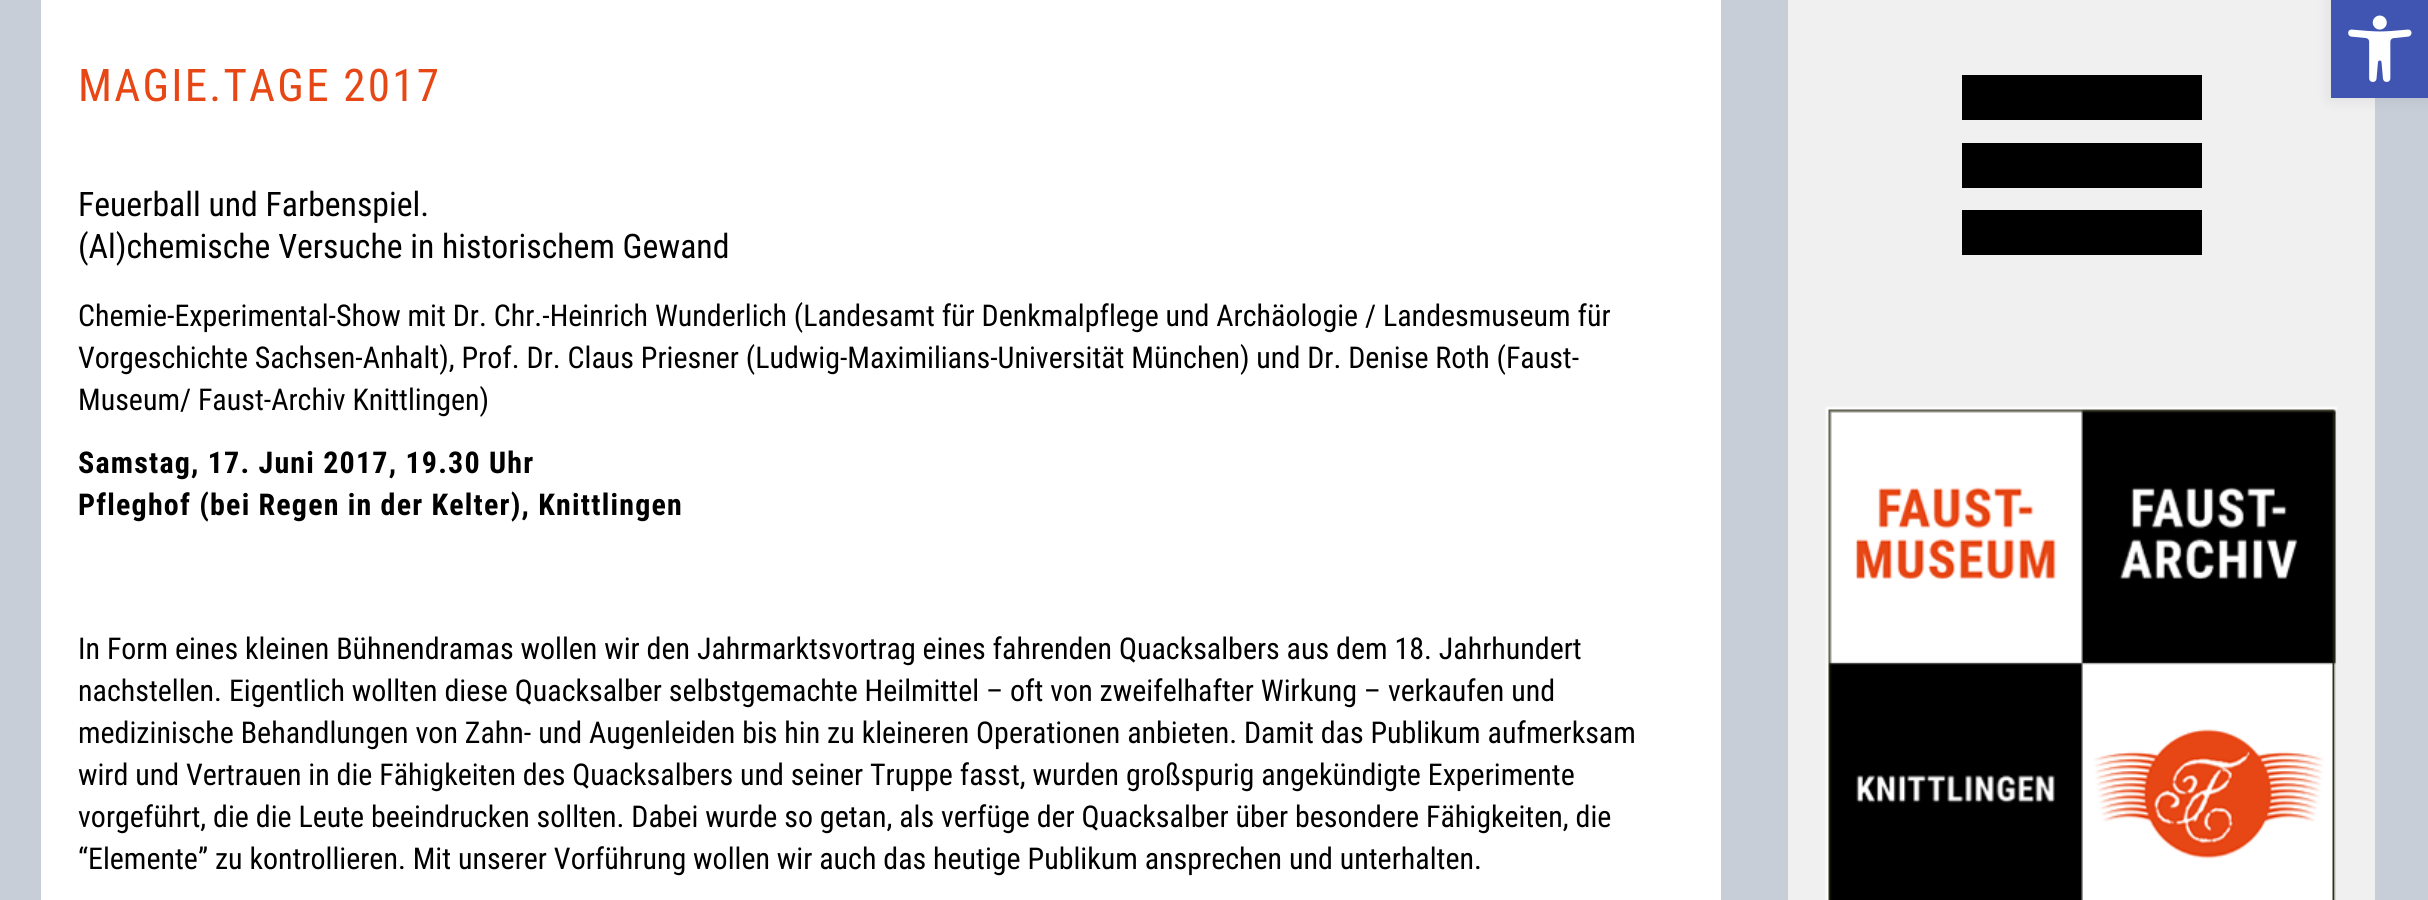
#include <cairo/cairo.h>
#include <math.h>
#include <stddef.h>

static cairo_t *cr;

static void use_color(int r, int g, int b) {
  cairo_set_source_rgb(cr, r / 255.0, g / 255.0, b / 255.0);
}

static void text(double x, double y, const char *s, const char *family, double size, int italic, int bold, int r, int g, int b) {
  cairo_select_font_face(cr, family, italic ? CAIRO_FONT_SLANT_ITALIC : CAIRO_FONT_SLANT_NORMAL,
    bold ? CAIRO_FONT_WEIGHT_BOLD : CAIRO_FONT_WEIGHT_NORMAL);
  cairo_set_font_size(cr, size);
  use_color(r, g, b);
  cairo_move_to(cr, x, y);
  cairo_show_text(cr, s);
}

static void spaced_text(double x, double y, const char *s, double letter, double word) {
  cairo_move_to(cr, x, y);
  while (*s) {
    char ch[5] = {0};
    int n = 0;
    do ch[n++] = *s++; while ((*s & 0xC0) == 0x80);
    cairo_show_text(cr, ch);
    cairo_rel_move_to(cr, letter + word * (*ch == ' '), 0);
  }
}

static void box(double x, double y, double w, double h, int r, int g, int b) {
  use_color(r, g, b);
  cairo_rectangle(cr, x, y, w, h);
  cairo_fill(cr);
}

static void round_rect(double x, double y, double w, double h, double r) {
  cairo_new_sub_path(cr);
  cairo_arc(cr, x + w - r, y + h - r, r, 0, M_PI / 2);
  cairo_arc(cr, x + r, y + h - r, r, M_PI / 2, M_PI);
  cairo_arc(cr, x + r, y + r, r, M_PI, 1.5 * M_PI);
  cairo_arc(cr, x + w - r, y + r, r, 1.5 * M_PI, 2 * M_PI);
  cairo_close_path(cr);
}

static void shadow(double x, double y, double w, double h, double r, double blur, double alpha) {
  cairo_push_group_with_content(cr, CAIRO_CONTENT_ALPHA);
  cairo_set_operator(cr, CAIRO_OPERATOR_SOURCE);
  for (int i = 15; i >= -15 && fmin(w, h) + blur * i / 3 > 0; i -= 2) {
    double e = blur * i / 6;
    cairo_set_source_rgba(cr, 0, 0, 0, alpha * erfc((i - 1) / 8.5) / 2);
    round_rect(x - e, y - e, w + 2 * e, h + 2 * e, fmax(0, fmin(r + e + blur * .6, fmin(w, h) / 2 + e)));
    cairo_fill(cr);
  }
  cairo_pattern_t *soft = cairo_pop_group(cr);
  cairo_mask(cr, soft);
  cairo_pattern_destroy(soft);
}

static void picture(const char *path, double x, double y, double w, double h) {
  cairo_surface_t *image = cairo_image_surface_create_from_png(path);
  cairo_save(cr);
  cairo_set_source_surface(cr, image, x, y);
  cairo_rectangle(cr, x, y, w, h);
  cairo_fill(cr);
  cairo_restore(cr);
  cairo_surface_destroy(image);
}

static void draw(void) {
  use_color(200, 206, 216);
  cairo_paint(cr);
  box(41, 0, 1680, 900, 255, 255, 255);
  box(1788, 0, 587, 900, 240, 240, 240);
  picture("img_01.png", 1825, 406, 512, 494);
  box(1962, 143, 240, 45, 0, 0, 0);
  box(1962, 75, 240, 45, 0, 0, 0);
  box(1962, 210, 240, 45, 0, 0, 0);
  use_color(0, 0, 0);
  shadow(2331, 0, 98, 98, 0, 7.5, 0.1);
  box(2331, 0, 97, 98, 64, 84, 178);
  picture("img_02.png", 2348, 15, 64, 67);
  cairo_select_font_face(cr, "Roboto Condensed", CAIRO_FONT_SLANT_NORMAL, CAIRO_FONT_WEIGHT_NORMAL);
  cairo_set_font_size(cr, 45);
  use_color(231, 71, 21);
  spaced_text(78, 101, "MAGIE.TAGE 2017", 2.25, 0);
  text(78, 216, "Feuerball und Farbenspiel.", "Roboto Condensed", 33.75, 0, 0, 0, 0, 0);
  text(78, 258, "(Al)chemische Versuche in historischem Gewand", "Roboto Condensed", 33.75, 0, 0, 0, 0, 0);
  text(78, 326, "Chemie-Experimental-Show mit Dr. Chr.-Heinrich Wunderlich (Landesamt für Denkmalpflege und Archäologie / Landesmuseum für", "Roboto Condensed", 30, 0, 0, 0, 0, 0);
  text(78, 368, "Vorgeschichte Sachsen-Anhalt), Prof. Dr. Claus Priesner (Ludwig-Maximilians-Universität München) und Dr. Denise Roth (Faust-", "Roboto Condensed", 30, 0, 0, 0, 0, 0);
  text(78, 410, "Museum/ Faust-Archiv Knittlingen)", "Roboto Condensed", 30, 0, 0, 0, 0, 0);
  cairo_select_font_face(cr, "Roboto Condensed", CAIRO_FONT_SLANT_NORMAL, CAIRO_FONT_WEIGHT_BOLD);
  spaced_text(78, 473, "Samstag, 17. Juni 2017, 19.30 Uhr", 1.2, 0);
  spaced_text(78, 515, "Pfleghof (bei Regen in der Kelter), Knittlingen", 1.2, 0);
  text(78, 659, "In Form eines kleinen Bühnendramas wollen wir den Jahrmarktsvortrag eines fahrenden Quacksalbers aus dem 18. Jahrhundert", "Roboto Condensed", 30, 0, 0, 0, 0, 0);
  text(78, 701, "nachstellen. Eigentlich wollten diese Quacksalber selbstgemachte Heilmittel – oft von zweifelhafter Wirkung – verkaufen und", "Roboto Condensed", 30, 0, 0, 0, 0, 0);
  text(78, 743, "medizinische Behandlungen von Zahn- und Augenleiden bis hin zu kleineren Operationen anbieten. Damit das Publikum aufmerksam", "Roboto Condensed", 30, 0, 0, 0, 0, 0);
  text(78, 785, "wird und Vertrauen in die Fähigkeiten des Quacksalbers und seiner Truppe fasst, wurden großspurig angekündigte Experimente", "Roboto Condensed", 30, 0, 0, 0, 0, 0);
  text(78, 827, "vorgeführt, die die Leute beeindrucken sollten. Dabei wurde so getan, als verfüge der Quacksalber über besondere Fähigkeiten, die", "Roboto Condensed", 30, 0, 0, 0, 0, 0);
  text(78, 869, "“Elemente” zu kontrollieren. Mit unserer Vorführung wollen wir auch das heutige Publikum ansprechen und unterhalten.", "Roboto Condensed", 30, 0, 0, 0, 0, 0);
}

int main(void) {
  cairo_surface_t *surface = cairo_image_surface_create(CAIRO_FORMAT_RGB24, 2428, 900);
  cr = cairo_create(surface);
  cairo_font_options_t *options = cairo_font_options_create();
  cairo_font_options_set_hint_metrics(options, CAIRO_HINT_METRICS_OFF);
  cairo_font_options_set_hint_style(options, CAIRO_HINT_STYLE_NONE);
  cairo_set_font_options(cr, options);
  cairo_set_miter_limit(cr, 4);
  draw();
  cairo_surface_write_to_png(surface, "out.png");
  cairo_font_options_destroy(options);
  cairo_destroy(cr);
  cairo_surface_destroy(surface);
  return 0;
}
